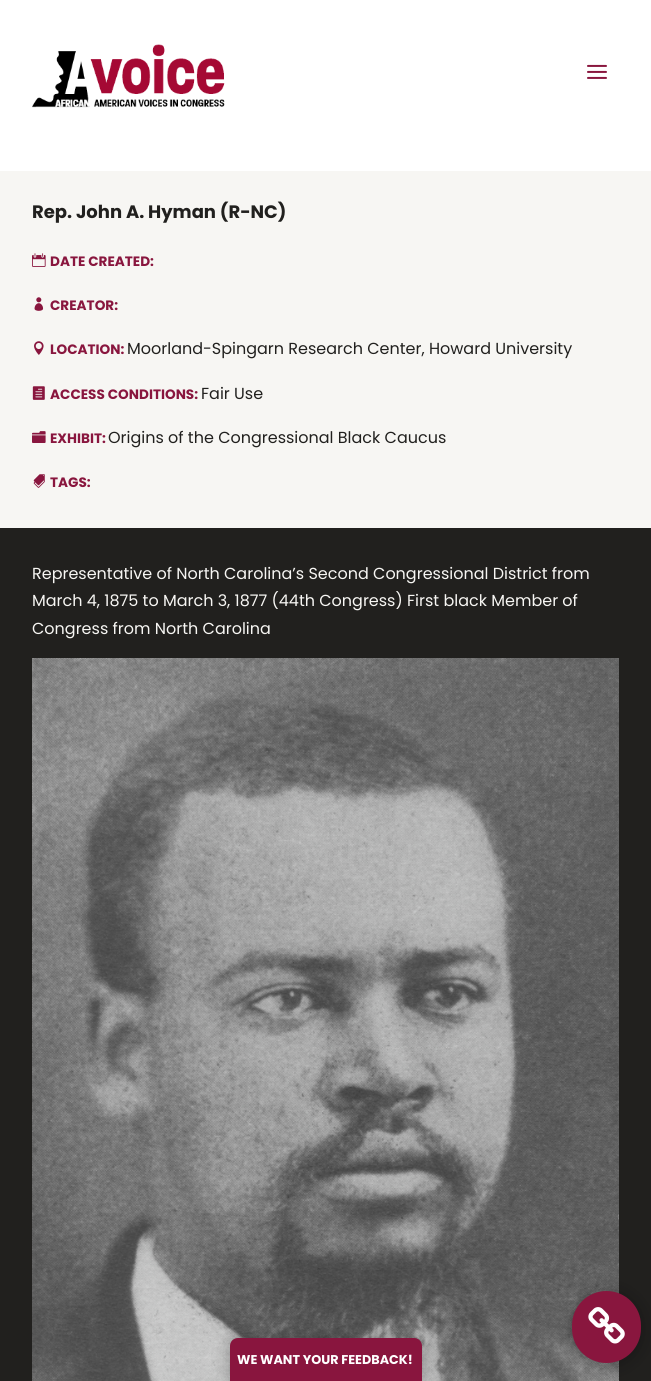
#include <cairo/cairo.h>
#include <math.h>
#include <stddef.h>

static cairo_t *cr;

static void use_color(int r, int g, int b) {
  cairo_set_source_rgb(cr, r / 255.0, g / 255.0, b / 255.0);
}

static void text(double x, double y, const char *s, const char *family, double size, int italic, int bold, int r, int g, int b) {
  cairo_select_font_face(cr, family, italic ? CAIRO_FONT_SLANT_ITALIC : CAIRO_FONT_SLANT_NORMAL,
    bold ? CAIRO_FONT_WEIGHT_BOLD : CAIRO_FONT_WEIGHT_NORMAL);
  cairo_set_font_size(cr, size);
  use_color(r, g, b);
  cairo_move_to(cr, x, y);
  cairo_show_text(cr, s);
}

static void box(double x, double y, double w, double h, int r, int g, int b) {
  use_color(r, g, b);
  cairo_rectangle(cr, x, y, w, h);
  cairo_fill(cr);
}

static void round_rect(double x, double y, double w, double h, double r) {
  cairo_new_sub_path(cr);
  cairo_arc(cr, x + w - r, y + h - r, r, 0, M_PI / 2);
  cairo_arc(cr, x + r, y + h - r, r, M_PI / 2, M_PI);
  cairo_arc(cr, x + r, y + r, r, M_PI, 1.5 * M_PI);
  cairo_arc(cr, x + w - r, y + r, r, 1.5 * M_PI, 2 * M_PI);
  cairo_close_path(cr);
}

static void shadow(double x, double y, double w, double h, double r, double blur, double alpha) {
  cairo_push_group_with_content(cr, CAIRO_CONTENT_ALPHA);
  cairo_set_operator(cr, CAIRO_OPERATOR_SOURCE);
  for (int i = 15; i >= -15 && fmin(w, h) + blur * i / 3 > 0; i -= 2) {
    double e = blur * i / 6;
    cairo_set_source_rgba(cr, 0, 0, 0, alpha * erfc((i - 1) / 8.5) / 2);
    round_rect(x - e, y - e, w + 2 * e, h + 2 * e, fmax(0, fmin(r + e + blur * .6, fmin(w, h) / 2 + e)));
    cairo_fill(cr);
  }
  cairo_pattern_t *soft = cairo_pop_group(cr);
  cairo_mask(cr, soft);
  cairo_pattern_destroy(soft);
}

static void picture(const char *path, double x, double y, double w, double h) {
  cairo_surface_t *image = cairo_image_surface_create_from_png(path);
  cairo_save(cr);
  cairo_set_source_surface(cr, image, x, y);
  cairo_rectangle(cr, x, y, w, h);
  cairo_fill(cr);
  cairo_restore(cr);
  cairo_surface_destroy(image);
}

static void draw(void) {
  use_color(255, 255, 255);
  cairo_paint(cr);
  picture("img_01.png", 32, 44, 193, 64);
  picture("img_02.png", 587, 64, 20, 15);
  box(0, 528, 651, 853, 33, 32, 30);
  box(0, 171, 651, 357, 247, 246, 243);
  picture("img_03.png", 32, 253, 14, 14);
  picture("img_04.png", 34, 297, 10, 14);
  picture("img_05.png", 34, 341, 10, 14);
  picture("img_06.png", 32, 386, 13, 14);
  picture("img_07.png", 32, 431, 14, 12);
  picture("img_08.png", 33, 474, 12, 14);
  picture("img_09.png", 32, 658, 587, 723);
  use_color(0, 0, 0);
  shadow(572, 1293, 69, 72, 34.5, 9, 0.3);
  use_color(137, 22, 62);
  round_rect(572, 1291, 69, 72, 34.5);
  cairo_fill(cr);
  picture("img_10.png", 588, 1307, 37, 37);
  use_color(0, 0, 0);
  shadow(230, 1340, 192, 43, 8, 9, 0.3);
  use_color(137, 21, 62);
  cairo_new_path(cr);
  cairo_move_to(cr, 238, 1338);
  cairo_line_to(cr, 414, 1338);
  cairo_curve_to(cr, 418.5, 1338, 422, 1341.5, 422, 1346);
  cairo_line_to(cr, 422, 1381);
  cairo_line_to(cr, 230, 1381);
  cairo_line_to(cr, 230, 1346);
  cairo_curve_to(cr, 230, 1341.5, 233.5, 1338, 238, 1338);
  cairo_close_path(cr);
  cairo_fill(cr);
  text(32, 218, "Rep. John A. Hyman (R-NC)", "Poppins", 18, 0, 1, 33, 32, 30);
  text(50, 266, "DATE CREATED:", "Poppins", 13.6, 0, 1, 137, 22, 62);
  text(50, 310, "CREATOR:", "Poppins", 13.6, 0, 1, 137, 22, 62);
  text(50, 354, "LOCATION:", "Poppins", 13.6, 0, 1, 137, 22, 62);
  text(127, 354, "Moorland-Spingarn Research Center, Howard University", "Poppins", 16, 0, 0, 33, 32, 30);
  text(50, 399, "ACCESS CONDITIONS:", "Poppins", 13.6, 0, 1, 137, 22, 62);
  text(201, 399, "Fair Use", "Poppins", 16, 0, 0, 33, 32, 30);
  text(50, 443, "EXHIBIT:", "Poppins", 13.6, 0, 1, 137, 22, 62);
  text(108, 443, "Origins of the Congressional Black Caucus", "Poppins", 16, 0, 0, 33, 32, 30);
  text(50, 487, "TAGS:", "Poppins", 13.6, 0, 1, 137, 22, 62);
  text(32, 579, "Representative of North Carolina’s Second Congressional District from", "Poppins", 16, 0, 0, 247, 246, 243);
  text(32, 606, "March 4, 1875 to March 3, 1877 (44th Congress) First black Member of", "Poppins", 16, 0, 0, 247, 246, 243);
  text(32, 634, "Congress from North Carolina", "Poppins", 16, 0, 0, 247, 246, 243);
  text(237, 1364, "WE WANT YOUR FEEDBACK!", "Poppins", 12.75, 0, 1, 255, 255, 255);
}

int main(void) {
  cairo_surface_t *surface = cairo_image_surface_create(CAIRO_FORMAT_RGB24, 651, 1381);
  cr = cairo_create(surface);
  cairo_font_options_t *options = cairo_font_options_create();
  cairo_font_options_set_hint_metrics(options, CAIRO_HINT_METRICS_OFF);
  cairo_font_options_set_hint_style(options, CAIRO_HINT_STYLE_NONE);
  cairo_set_font_options(cr, options);
  cairo_set_miter_limit(cr, 4);
  draw();
  cairo_surface_write_to_png(surface, "out.png");
  cairo_font_options_destroy(options);
  cairo_destroy(cr);
  cairo_surface_destroy(surface);
  return 0;
}
